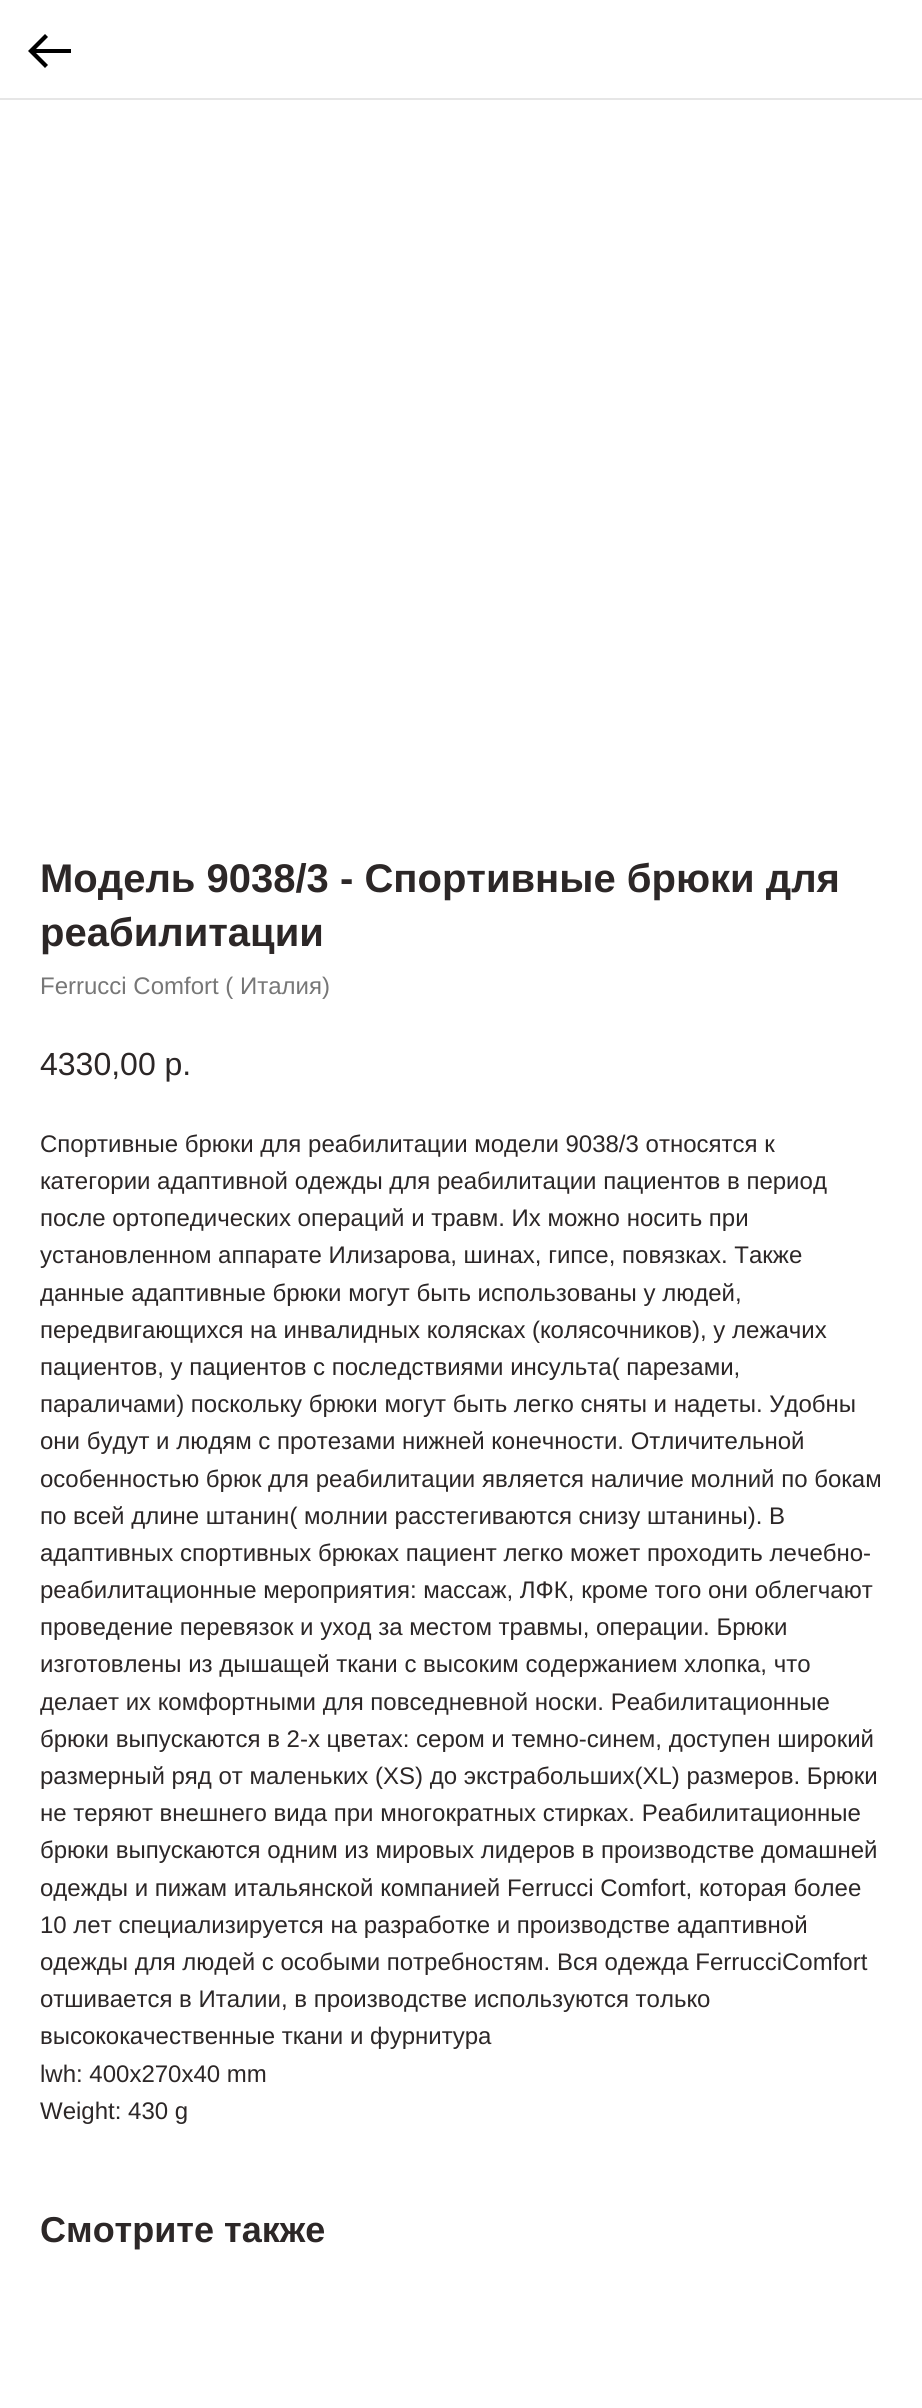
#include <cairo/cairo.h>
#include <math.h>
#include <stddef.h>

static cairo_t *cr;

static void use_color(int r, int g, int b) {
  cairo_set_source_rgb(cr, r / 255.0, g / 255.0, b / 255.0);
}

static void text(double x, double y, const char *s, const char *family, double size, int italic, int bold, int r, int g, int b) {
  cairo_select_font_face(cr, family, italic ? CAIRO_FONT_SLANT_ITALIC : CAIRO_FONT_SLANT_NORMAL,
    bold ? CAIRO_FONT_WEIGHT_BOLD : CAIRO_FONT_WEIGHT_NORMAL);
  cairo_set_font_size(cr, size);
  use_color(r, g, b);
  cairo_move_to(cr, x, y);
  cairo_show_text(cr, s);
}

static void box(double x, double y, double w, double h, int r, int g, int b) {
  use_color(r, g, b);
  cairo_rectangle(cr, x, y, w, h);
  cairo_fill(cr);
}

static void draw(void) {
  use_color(255, 255, 255);
  cairo_paint(cr);
  box(0, 98, 922, 2, 230, 230, 230);
  use_color(0, 0, 0);
  cairo_new_path(cr);
  cairo_move_to(cr, 45, 34);
  cairo_line_to(cr, 48, 37);
  cairo_line_to(cr, 36, 49);
  cairo_line_to(cr, 71, 49);
  cairo_line_to(cr, 71, 53);
  cairo_line_to(cr, 36, 53);
  cairo_line_to(cr, 48, 65);
  cairo_line_to(cr, 45, 68);
  cairo_line_to(cr, 28, 51);
  cairo_close_path(cr);
  cairo_fill(cr);
  text(40, 892, "Модель 9038/3 - Cпортивные брюки для", "Liberation Sans", 40, 0, 1, 44, 39, 39);
  text(40, 946, "реабилитации", "Liberation Sans", 40, 0, 1, 44, 39, 39);
  text(40, 994, "Ferrucci Comfort ( Италия)", "Liberation Sans", 24, 0, 0, 119, 119, 119);
  text(40, 1075, "4330,00 р.", "Liberation Sans", 32, 0, 0, 44, 39, 39);
  text(40, 1152, "Спортивные брюки для реабилитации модели 9038/3 относятся к", "Liberation Sans", 24, 0, 0, 44, 39, 39);
  text(40, 1189, "категории адаптивной одежды для реабилитации пациентов в период", "Liberation Sans", 24, 0, 0, 44, 39, 39);
  text(40, 1226, "после ортопедических операций и травм. Их можно носить при", "Liberation Sans", 24, 0, 0, 44, 39, 39);
  text(40, 1263, "установленном аппарате Илизарова, шинах, гипсе, повязках. Также", "Liberation Sans", 24, 0, 0, 44, 39, 39);
  text(40, 1301, "данные адаптивные брюки могут быть использованы у людей,", "Liberation Sans", 24, 0, 0, 44, 39, 39);
  text(40, 1338, "передвигающихся на инвалидных колясках (колясочников), у лежачих", "Liberation Sans", 24, 0, 0, 44, 39, 39);
  text(40, 1375, "пациентов, у пациентов с последствиями инсульта( парезами,", "Liberation Sans", 24, 0, 0, 44, 39, 39);
  text(40, 1412, "параличами) поскольку брюки могут быть легко сняты и надеты. Удобны", "Liberation Sans", 24, 0, 0, 44, 39, 39);
  text(40, 1449, "они будут и людям с протезами нижней конечности. Отличительной", "Liberation Sans", 24, 0, 0, 44, 39, 39);
  text(40, 1487, "особенностью брюк для реабилитации является наличие молний по бокам", "Liberation Sans", 24, 0, 0, 44, 39, 39);
  text(40, 1524, "по всей длине штанин( молнии расстегиваются снизу штанины). В", "Liberation Sans", 24, 0, 0, 44, 39, 39);
  text(40, 1561, "адаптивных спортивных брюках пациент легко может проходить лечебно-", "Liberation Sans", 24, 0, 0, 44, 39, 39);
  text(40, 1598, "реабилитационные мероприятия: массаж, ЛФК, кроме того они облегчают", "Liberation Sans", 24, 0, 0, 44, 39, 39);
  text(40, 1635, "проведение перевязок и уход за местом травмы, операции. Брюки", "Liberation Sans", 24, 0, 0, 44, 39, 39);
  text(40, 1672, "изготовлены из дышащей ткани с высоким содержанием хлопка, что", "Liberation Sans", 24, 0, 0, 44, 39, 39);
  text(40, 1710, "делает их комфортными для повседневной носки. Реабилитационные", "Liberation Sans", 24, 0, 0, 44, 39, 39);
  text(40, 1747, "брюки выпускаются в 2-х цветах: сером и темно-синем, доступен широкий", "Liberation Sans", 24, 0, 0, 44, 39, 39);
  text(40, 1784, "размерный ряд от маленьких (XS) до экстрабольших(XL) размеров. Брюки", "Liberation Sans", 24, 0, 0, 44, 39, 39);
  text(40, 1821, "не теряют внешнего вида при многократных стирках. Реабилитационные", "Liberation Sans", 24, 0, 0, 44, 39, 39);
  text(40, 1858, "брюки выпускаются одним из мировых лидеров в производстве домашней", "Liberation Sans", 24, 0, 0, 44, 39, 39);
  text(40, 1896, "одежды и пижам итальянской компанией Ferrucci Comfort, которая более", "Liberation Sans", 24, 0, 0, 44, 39, 39);
  text(40, 1933, "10 лет специализируется на разработке и производстве адаптивной", "Liberation Sans", 24, 0, 0, 44, 39, 39);
  text(40, 1970, "одежды для людей с особыми потребностям. Вся одежда FerrucciСomfort", "Liberation Sans", 24, 0, 0, 44, 39, 39);
  text(40, 2007, "отшивается в Италии, в производстве используются только", "Liberation Sans", 24, 0, 0, 44, 39, 39);
  text(40, 2044, "высококачественные ткани и фурнитура", "Liberation Sans", 24, 0, 0, 44, 39, 39);
  text(40, 2082, "lwh: 400x270x40 mm", "Liberation Sans", 24, 0, 0, 44, 39, 39);
  text(40, 2119, "Weight: 430 g", "Liberation Sans", 24, 0, 0, 44, 39, 39);
  text(40, 2242, "Смотрите также", "Liberation Sans", 36, 0, 1, 44, 39, 39);
}

int main(void) {
  cairo_surface_t *surface = cairo_image_surface_create(CAIRO_FORMAT_RGB24, 922, 2408);
  cr = cairo_create(surface);
  cairo_font_options_t *options = cairo_font_options_create();
  cairo_font_options_set_hint_metrics(options, CAIRO_HINT_METRICS_OFF);
  cairo_font_options_set_hint_style(options, CAIRO_HINT_STYLE_NONE);
  cairo_set_font_options(cr, options);
  cairo_set_miter_limit(cr, 4);
  draw();
  cairo_surface_write_to_png(surface, "out.png");
  cairo_font_options_destroy(options);
  cairo_destroy(cr);
  cairo_surface_destroy(surface);
  return 0;
}
